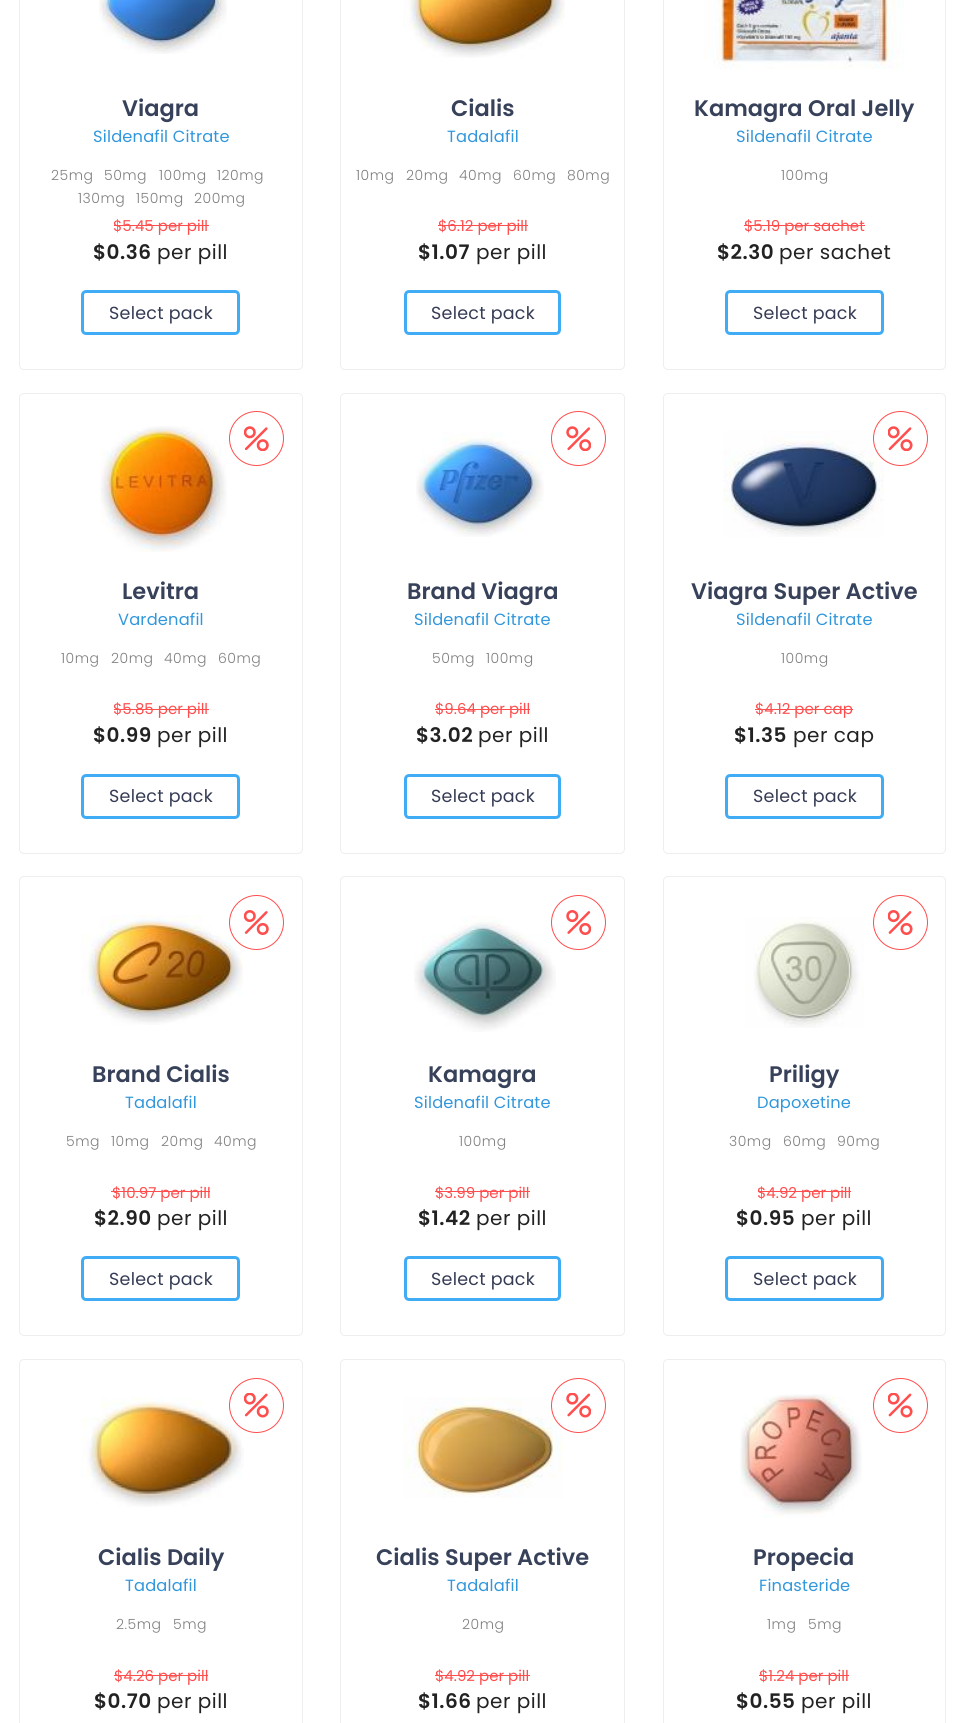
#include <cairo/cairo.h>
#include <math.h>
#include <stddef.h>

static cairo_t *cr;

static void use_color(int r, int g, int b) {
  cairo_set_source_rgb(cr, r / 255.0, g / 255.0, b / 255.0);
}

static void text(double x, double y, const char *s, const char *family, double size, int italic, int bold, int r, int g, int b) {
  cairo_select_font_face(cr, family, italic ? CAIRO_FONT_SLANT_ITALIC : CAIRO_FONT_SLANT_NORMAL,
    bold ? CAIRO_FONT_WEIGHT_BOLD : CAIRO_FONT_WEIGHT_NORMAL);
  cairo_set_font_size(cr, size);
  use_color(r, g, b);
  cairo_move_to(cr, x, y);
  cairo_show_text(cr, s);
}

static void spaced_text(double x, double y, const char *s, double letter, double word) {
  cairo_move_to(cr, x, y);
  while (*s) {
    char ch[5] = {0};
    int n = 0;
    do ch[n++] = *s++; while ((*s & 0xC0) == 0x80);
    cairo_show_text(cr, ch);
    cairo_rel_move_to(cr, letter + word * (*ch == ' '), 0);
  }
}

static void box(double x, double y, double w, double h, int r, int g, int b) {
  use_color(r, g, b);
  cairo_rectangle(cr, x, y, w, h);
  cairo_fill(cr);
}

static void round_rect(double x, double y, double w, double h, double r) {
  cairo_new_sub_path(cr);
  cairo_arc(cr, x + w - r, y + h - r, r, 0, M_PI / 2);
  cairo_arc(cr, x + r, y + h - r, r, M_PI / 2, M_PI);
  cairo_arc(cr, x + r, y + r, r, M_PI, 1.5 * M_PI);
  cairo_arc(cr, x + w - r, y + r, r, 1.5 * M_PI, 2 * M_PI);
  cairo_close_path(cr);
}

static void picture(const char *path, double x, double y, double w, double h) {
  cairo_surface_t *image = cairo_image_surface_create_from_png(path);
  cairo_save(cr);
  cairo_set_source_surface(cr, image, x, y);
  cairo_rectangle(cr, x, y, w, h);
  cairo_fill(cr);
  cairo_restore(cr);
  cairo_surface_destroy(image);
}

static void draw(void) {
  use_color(255, 255, 255);
  cairo_paint(cr);
  round_rect(19.5, -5.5, 283, 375, 4.5);
  use_color(238, 238, 238);
  cairo_set_line_width(cr, 1);
  cairo_stroke(cr);
  picture("img_01.png", 99, 0, 128, 54);
  box(114, 225, 95, 1, 254, 78, 78);
  round_rect(82.5, 291.5, 156, 42, 3.5);
  use_color(64, 172, 245);
  cairo_set_line_width(cr, 3);
  cairo_stroke(cr);
  round_rect(340.5, -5.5, 284, 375, 4.5);
  use_color(238, 238, 238);
  cairo_set_line_width(cr, 1);
  cairo_stroke(cr);
  picture("img_02.png", 403, 0, 162, 58);
  box(438, 225, 90, 1, 254, 78, 78);
  round_rect(405.5, 291.5, 154, 42, 3.5);
  use_color(64, 172, 245);
  cairo_set_line_width(cr, 3);
  cairo_stroke(cr);
  round_rect(663.5, -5.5, 282, 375, 4.5);
  use_color(238, 238, 238);
  cairo_set_line_width(cr, 1);
  cairo_stroke(cr);
  picture("img_03.png", 704, 0, 200, 69);
  box(744, 225, 121, 1, 254, 78, 78);
  round_rect(726.5, 291.5, 156, 42, 3.5);
  use_color(64, 172, 245);
  cairo_set_line_width(cr, 3);
  cairo_stroke(cr);
  round_rect(19.5, 393.5, 283, 460, 4.5);
  use_color(238, 238, 238);
  cairo_set_line_width(cr, 1);
  cairo_stroke(cr);
  picture("img_04.png", 100, 426, 127, 126);
  cairo_arc(cr, 256.5, 438.5, 27, 0, 2 * M_PI);
  use_color(254, 78, 78);
  cairo_stroke(cr);
  picture("img_05.png", 244, 426, 25, 25);
  box(114, 709, 95, 1, 254, 78, 78);
  round_rect(82.5, 775.5, 156, 42, 3.5);
  use_color(64, 172, 245);
  cairo_set_line_width(cr, 3);
  cairo_stroke(cr);
  round_rect(340.5, 393.5, 284, 460, 4.5);
  use_color(238, 238, 238);
  cairo_set_line_width(cr, 1);
  cairo_stroke(cr);
  picture("img_06.png", 416, 432, 128, 105);
  cairo_arc(cr, 578.5, 438.5, 27, 0, 2 * M_PI);
  use_color(254, 78, 78);
  cairo_stroke(cr);
  picture("img_07.png", 566, 426, 25, 25);
  box(435, 709, 95, 1, 254, 78, 78);
  round_rect(405.5, 775.5, 154, 42, 3.5);
  use_color(64, 172, 245);
  cairo_set_line_width(cr, 3);
  cairo_stroke(cr);
  round_rect(663.5, 393.5, 282, 460, 4.5);
  use_color(238, 238, 238);
  cairo_set_line_width(cr, 1);
  cairo_stroke(cr);
  picture("img_08.png", 723, 431, 161, 106);
  cairo_arc(cr, 900.5, 438.5, 27, 0, 2 * M_PI);
  use_color(254, 78, 78);
  cairo_stroke(cr);
  picture("img_09.png", 888, 426, 25, 25);
  box(755, 709, 98, 1, 254, 78, 78);
  round_rect(726.5, 775.5, 156, 42, 3.5);
  use_color(64, 172, 245);
  cairo_set_line_width(cr, 3);
  cairo_stroke(cr);
  round_rect(19.5, 876.5, 283, 459, 4.5);
  use_color(238, 238, 238);
  cairo_set_line_width(cr, 1);
  cairo_stroke(cr);
  picture("img_10.png", 81, 915, 162, 110);
  cairo_arc(cr, 256.5, 922.5, 27, 0, 2 * M_PI);
  use_color(254, 78, 78);
  cairo_stroke(cr);
  picture("img_11.png", 244, 910, 25, 25);
  box(111, 1191, 99, 1, 254, 78, 78);
  round_rect(82.5, 1257.5, 156, 42, 3.5);
  use_color(64, 172, 245);
  cairo_set_line_width(cr, 3);
  cairo_stroke(cr);
  round_rect(340.5, 876.5, 284, 459, 4.5);
  use_color(238, 238, 238);
  cairo_set_line_width(cr, 1);
  cairo_stroke(cr);
  picture("img_12.png", 414, 916, 142, 116);
  cairo_arc(cr, 578.5, 922.5, 27, 0, 2 * M_PI);
  use_color(254, 78, 78);
  cairo_stroke(cr);
  picture("img_13.png", 566, 910, 25, 25);
  box(435, 1191, 95, 1, 254, 78, 78);
  round_rect(405.5, 1257.5, 154, 42, 3.5);
  use_color(64, 172, 245);
  cairo_set_line_width(cr, 3);
  cairo_stroke(cr);
  round_rect(663.5, 876.5, 282, 459, 4.5);
  use_color(238, 238, 238);
  cairo_set_line_width(cr, 1);
  cairo_stroke(cr);
  picture("img_14.png", 745, 917, 119, 111);
  cairo_arc(cr, 900.5, 922.5, 27, 0, 2 * M_PI);
  use_color(254, 78, 78);
  cairo_stroke(cr);
  picture("img_15.png", 888, 910, 25, 25);
  box(758, 1191, 93, 1, 254, 78, 78);
  round_rect(726.5, 1257.5, 156, 42, 3.5);
  use_color(64, 172, 245);
  cairo_set_line_width(cr, 3);
  cairo_stroke(cr);
  round_rect(19.5, 1359.5, 283, 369, 4.5);
  use_color(238, 238, 238);
  cairo_set_line_width(cr, 1);
  cairo_stroke(cr);
  picture("img_16.png", 81, 1397, 163, 110);
  cairo_arc(cr, 256.5, 1405.5, 27, 0, 2 * M_PI);
  use_color(254, 78, 78);
  cairo_stroke(cr);
  picture("img_17.png", 244, 1393, 25, 25);
  box(114, 1675, 94, 1, 254, 78, 78);
  round_rect(340.5, 1359.5, 284, 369, 4.5);
  use_color(238, 238, 238);
  cairo_stroke(cr);
  picture("img_18.png", 403, 1397, 160, 101);
  cairo_arc(cr, 578.5, 1405.5, 27, 0, 2 * M_PI);
  use_color(254, 78, 78);
  cairo_stroke(cr);
  picture("img_19.png", 566, 1393, 25, 25);
  box(435, 1675, 95, 1, 254, 78, 78);
  round_rect(663.5, 1359.5, 282, 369, 4.5);
  use_color(238, 238, 238);
  cairo_stroke(cr);
  picture("img_20.png", 740, 1394, 122, 124);
  cairo_arc(cr, 900.5, 1405.5, 27, 0, 2 * M_PI);
  use_color(254, 78, 78);
  cairo_stroke(cr);
  picture("img_21.png", 888, 1393, 25, 25);
  box(759, 1675, 90, 1, 254, 78, 78);
  text(122, 116, "Viagra", "Poppins SemiBold", 22.5, 0, 0, 55, 65, 90);
  cairo_select_font_face(cr, "Poppins", CAIRO_FONT_SLANT_NORMAL, CAIRO_FONT_WEIGHT_NORMAL);
  cairo_set_font_size(cr, 16.25);
  use_color(49, 151, 220);
  spaced_text(93, 142, "Sildenafil Citrate", 0.2, 0);
  cairo_select_font_face(cr, "Poppins Light", CAIRO_FONT_SLANT_NORMAL, CAIRO_FONT_WEIGHT_NORMAL);
  cairo_set_font_size(cr, 14);
  use_color(128, 128, 128);
  spaced_text(51, 180, "25mg", 0.5, 0);
  spaced_text(104, 180, "50mg", 0.5, 0);
  spaced_text(159, 180, "100mg", 0.5, 0);
  spaced_text(217, 180, "120mg", 0.5, 0);
  spaced_text(78, 203, "130mg", 0.5, 0);
  spaced_text(136, 203, "150mg", 0.5, 0);
  spaced_text(194, 203, "200mg", 0.5, 0);
  text(113, 231, "$5.45 per pill", "Poppins", 15, 0, 0, 254, 78, 78);
  cairo_select_font_face(cr, "Poppins SemiBold", CAIRO_FONT_SLANT_NORMAL, CAIRO_FONT_WEIGHT_NORMAL);
  cairo_set_font_size(cr, 20);
  use_color(34, 34, 34);
  spaced_text(93, 259, "$0.36", 0.5, 0);
  cairo_select_font_face(cr, "Poppins", CAIRO_FONT_SLANT_NORMAL, CAIRO_FONT_WEIGHT_NORMAL);
  spaced_text(157, 259, "per pill", 0.5, 0);
  cairo_set_font_size(cr, 17.5);
  use_color(53, 59, 84);
  spaced_text(109, 319, "Select pack", 0.25, 0);
  text(451, 116, "Cialis", "Poppins SemiBold", 22.5, 0, 0, 55, 65, 90);
  cairo_select_font_face(cr, "Poppins", CAIRO_FONT_SLANT_NORMAL, CAIRO_FONT_WEIGHT_NORMAL);
  cairo_set_font_size(cr, 16.25);
  use_color(49, 151, 220);
  spaced_text(447, 142, "Tadalafil", 0.2, 0);
  cairo_select_font_face(cr, "Poppins Light", CAIRO_FONT_SLANT_NORMAL, CAIRO_FONT_WEIGHT_NORMAL);
  cairo_set_font_size(cr, 14);
  use_color(128, 128, 128);
  spaced_text(356, 180, "10mg", 0.5, 0);
  spaced_text(406, 180, "20mg", 0.5, 0);
  spaced_text(459, 180, "40mg", 0.5, 0);
  spaced_text(513, 180, "60mg", 0.5, 0);
  spaced_text(567, 180, "80mg", 0.5, 0);
  text(438, 231, "$6.12 per pill", "Poppins", 15, 0, 0, 254, 78, 78);
  cairo_select_font_face(cr, "Poppins SemiBold", CAIRO_FONT_SLANT_NORMAL, CAIRO_FONT_WEIGHT_NORMAL);
  cairo_set_font_size(cr, 20);
  use_color(34, 34, 34);
  spaced_text(418, 259, "$1.07", 0.5, 0);
  cairo_select_font_face(cr, "Poppins", CAIRO_FONT_SLANT_NORMAL, CAIRO_FONT_WEIGHT_NORMAL);
  spaced_text(476, 259, "per pill", 0.5, 0);
  cairo_set_font_size(cr, 17.5);
  use_color(53, 59, 84);
  spaced_text(431, 319, "Select pack", 0.25, 0);
  text(694, 116, "Kamagra Oral Jelly", "Poppins SemiBold", 22.5, 0, 0, 55, 65, 90);
  cairo_select_font_face(cr, "Poppins", CAIRO_FONT_SLANT_NORMAL, CAIRO_FONT_WEIGHT_NORMAL);
  cairo_set_font_size(cr, 16.25);
  use_color(49, 151, 220);
  spaced_text(736, 142, "Sildenafil Citrate", 0.2, 0);
  cairo_select_font_face(cr, "Poppins Light", CAIRO_FONT_SLANT_NORMAL, CAIRO_FONT_WEIGHT_NORMAL);
  cairo_set_font_size(cr, 14);
  use_color(128, 128, 128);
  spaced_text(781, 180, "100mg", 0.5, 0);
  text(744, 231, "$5.19 per sachet", "Poppins", 15, 0, 0, 254, 78, 78);
  cairo_select_font_face(cr, "Poppins SemiBold", CAIRO_FONT_SLANT_NORMAL, CAIRO_FONT_WEIGHT_NORMAL);
  cairo_set_font_size(cr, 20);
  use_color(34, 34, 34);
  spaced_text(717, 259, "$2.30", 0.5, 0);
  cairo_select_font_face(cr, "Poppins", CAIRO_FONT_SLANT_NORMAL, CAIRO_FONT_WEIGHT_NORMAL);
  spaced_text(779, 259, "per sachet", 0.5, 0);
  cairo_set_font_size(cr, 17.5);
  use_color(53, 59, 84);
  spaced_text(753, 319, "Select pack", 0.25, 0);
  text(122, 599, "Levitra", "Poppins SemiBold", 22.5, 0, 0, 55, 65, 90);
  cairo_select_font_face(cr, "Poppins", CAIRO_FONT_SLANT_NORMAL, CAIRO_FONT_WEIGHT_NORMAL);
  cairo_set_font_size(cr, 16.25);
  use_color(49, 151, 220);
  spaced_text(118, 625, "Vardenafil", 0.2, 0);
  cairo_select_font_face(cr, "Poppins Light", CAIRO_FONT_SLANT_NORMAL, CAIRO_FONT_WEIGHT_NORMAL);
  cairo_set_font_size(cr, 14);
  use_color(128, 128, 128);
  spaced_text(61, 663, "10mg", 0.5, 0);
  spaced_text(111, 663, "20mg", 0.5, 0);
  spaced_text(164, 663, "40mg", 0.5, 0);
  spaced_text(218, 663, "60mg", 0.5, 0);
  text(113, 714, "$5.85 per pill", "Poppins", 15, 0, 0, 254, 78, 78);
  cairo_select_font_face(cr, "Poppins SemiBold", CAIRO_FONT_SLANT_NORMAL, CAIRO_FONT_WEIGHT_NORMAL);
  cairo_set_font_size(cr, 20);
  use_color(34, 34, 34);
  spaced_text(93, 742, "$0.99", 0.5, 0);
  cairo_select_font_face(cr, "Poppins", CAIRO_FONT_SLANT_NORMAL, CAIRO_FONT_WEIGHT_NORMAL);
  spaced_text(157, 742, "per pill", 0.5, 0);
  cairo_set_font_size(cr, 17.5);
  use_color(53, 59, 84);
  spaced_text(109, 802, "Select pack", 0.25, 0);
  text(407, 599, "Brand Viagra", "Poppins SemiBold", 22.5, 0, 0, 55, 65, 90);
  cairo_select_font_face(cr, "Poppins", CAIRO_FONT_SLANT_NORMAL, CAIRO_FONT_WEIGHT_NORMAL);
  cairo_set_font_size(cr, 16.25);
  use_color(49, 151, 220);
  spaced_text(414, 625, "Sildenafil Citrate", 0.2, 0);
  cairo_select_font_face(cr, "Poppins Light", CAIRO_FONT_SLANT_NORMAL, CAIRO_FONT_WEIGHT_NORMAL);
  cairo_set_font_size(cr, 14);
  use_color(128, 128, 128);
  spaced_text(432, 663, "50mg", 0.5, 0);
  spaced_text(486, 663, "100mg", 0.5, 0);
  text(435, 714, "$9.64 per pill", "Poppins", 15, 0, 0, 254, 78, 78);
  cairo_select_font_face(cr, "Poppins SemiBold", CAIRO_FONT_SLANT_NORMAL, CAIRO_FONT_WEIGHT_NORMAL);
  cairo_set_font_size(cr, 20);
  use_color(34, 34, 34);
  spaced_text(416, 742, "$3.02", 0.5, 0);
  cairo_select_font_face(cr, "Poppins", CAIRO_FONT_SLANT_NORMAL, CAIRO_FONT_WEIGHT_NORMAL);
  spaced_text(478, 742, "per pill", 0.5, 0);
  cairo_set_font_size(cr, 17.5);
  use_color(53, 59, 84);
  spaced_text(431, 802, "Select pack", 0.25, 0);
  text(691, 599, "Viagra Super Active", "Poppins SemiBold", 22.5, 0, 0, 55, 65, 90);
  cairo_select_font_face(cr, "Poppins", CAIRO_FONT_SLANT_NORMAL, CAIRO_FONT_WEIGHT_NORMAL);
  cairo_set_font_size(cr, 16.25);
  use_color(49, 151, 220);
  spaced_text(736, 625, "Sildenafil Citrate", 0.2, 0);
  cairo_select_font_face(cr, "Poppins Light", CAIRO_FONT_SLANT_NORMAL, CAIRO_FONT_WEIGHT_NORMAL);
  cairo_set_font_size(cr, 14);
  use_color(128, 128, 128);
  spaced_text(781, 663, "100mg", 0.5, 0);
  text(755, 714, "$4.12 per cap", "Poppins", 15, 0, 0, 254, 78, 78);
  cairo_select_font_face(cr, "Poppins SemiBold", CAIRO_FONT_SLANT_NORMAL, CAIRO_FONT_WEIGHT_NORMAL);
  cairo_set_font_size(cr, 20);
  use_color(34, 34, 34);
  spaced_text(734, 742, "$1.35", 0.5, 0);
  cairo_select_font_face(cr, "Poppins", CAIRO_FONT_SLANT_NORMAL, CAIRO_FONT_WEIGHT_NORMAL);
  spaced_text(793, 742, "per cap", 0.5, 0);
  cairo_set_font_size(cr, 17.5);
  use_color(53, 59, 84);
  spaced_text(753, 802, "Select pack", 0.25, 0);
  text(92, 1082, "Brand Cialis", "Poppins SemiBold", 22.5, 0, 0, 55, 65, 90);
  cairo_select_font_face(cr, "Poppins", CAIRO_FONT_SLANT_NORMAL, CAIRO_FONT_WEIGHT_NORMAL);
  cairo_set_font_size(cr, 16.25);
  use_color(49, 151, 220);
  spaced_text(125, 1108, "Tadalafil", 0.2, 0);
  cairo_select_font_face(cr, "Poppins Light", CAIRO_FONT_SLANT_NORMAL, CAIRO_FONT_WEIGHT_NORMAL);
  cairo_set_font_size(cr, 14);
  use_color(128, 128, 128);
  spaced_text(66, 1146, "5mg", 0.5, 0);
  spaced_text(111, 1146, "10mg", 0.5, 0);
  spaced_text(161, 1146, "20mg", 0.5, 0);
  spaced_text(214, 1146, "40mg", 0.5, 0);
  text(112, 1198, "$10.97 per pill", "Poppins", 15, 0, 0, 254, 78, 78);
  cairo_select_font_face(cr, "Poppins SemiBold", CAIRO_FONT_SLANT_NORMAL, CAIRO_FONT_WEIGHT_NORMAL);
  cairo_set_font_size(cr, 20);
  use_color(34, 34, 34);
  spaced_text(94, 1225, "$2.90", 0.5, 0);
  cairo_select_font_face(cr, "Poppins", CAIRO_FONT_SLANT_NORMAL, CAIRO_FONT_WEIGHT_NORMAL);
  spaced_text(157, 1225, "per pill", 0.5, 0);
  cairo_set_font_size(cr, 17.5);
  use_color(53, 59, 84);
  spaced_text(109, 1285, "Select pack", 0.25, 0);
  text(428, 1082, "Kamagra", "Poppins SemiBold", 22.5, 0, 0, 55, 65, 90);
  cairo_select_font_face(cr, "Poppins", CAIRO_FONT_SLANT_NORMAL, CAIRO_FONT_WEIGHT_NORMAL);
  cairo_set_font_size(cr, 16.25);
  use_color(49, 151, 220);
  spaced_text(414, 1108, "Sildenafil Citrate", 0.2, 0);
  cairo_select_font_face(cr, "Poppins Light", CAIRO_FONT_SLANT_NORMAL, CAIRO_FONT_WEIGHT_NORMAL);
  cairo_set_font_size(cr, 14);
  use_color(128, 128, 128);
  spaced_text(459, 1146, "100mg", 0.5, 0);
  text(435, 1198, "$3.99 per pill", "Poppins", 15, 0, 0, 254, 78, 78);
  cairo_select_font_face(cr, "Poppins SemiBold", CAIRO_FONT_SLANT_NORMAL, CAIRO_FONT_WEIGHT_NORMAL);
  cairo_set_font_size(cr, 20);
  use_color(34, 34, 34);
  spaced_text(418, 1225, "$1.42", 0.5, 0);
  cairo_select_font_face(cr, "Poppins", CAIRO_FONT_SLANT_NORMAL, CAIRO_FONT_WEIGHT_NORMAL);
  spaced_text(476, 1225, "per pill", 0.5, 0);
  cairo_set_font_size(cr, 17.5);
  use_color(53, 59, 84);
  spaced_text(431, 1285, "Select pack", 0.25, 0);
  text(769, 1082, "Priligy", "Poppins SemiBold", 22.5, 0, 0, 55, 65, 90);
  cairo_select_font_face(cr, "Poppins", CAIRO_FONT_SLANT_NORMAL, CAIRO_FONT_WEIGHT_NORMAL);
  cairo_set_font_size(cr, 16.25);
  use_color(49, 151, 220);
  spaced_text(757, 1108, "Dapoxetine", 0.2, 0);
  cairo_select_font_face(cr, "Poppins Light", CAIRO_FONT_SLANT_NORMAL, CAIRO_FONT_WEIGHT_NORMAL);
  cairo_set_font_size(cr, 14);
  use_color(128, 128, 128);
  spaced_text(729, 1146, "30mg", 0.5, 0);
  spaced_text(783, 1146, "60mg", 0.5, 0);
  spaced_text(837, 1146, "90mg", 0.5, 0);
  text(757, 1198, "$4.92 per pill", "Poppins", 15, 0, 0, 254, 78, 78);
  cairo_select_font_face(cr, "Poppins SemiBold", CAIRO_FONT_SLANT_NORMAL, CAIRO_FONT_WEIGHT_NORMAL);
  cairo_set_font_size(cr, 20);
  use_color(34, 34, 34);
  spaced_text(736, 1225, "$0.95", 0.5, 0);
  cairo_select_font_face(cr, "Poppins", CAIRO_FONT_SLANT_NORMAL, CAIRO_FONT_WEIGHT_NORMAL);
  spaced_text(801, 1225, "per pill", 0.5, 0);
  cairo_set_font_size(cr, 17.5);
  use_color(53, 59, 84);
  spaced_text(753, 1285, "Select pack", 0.25, 0);
  text(98, 1565, "Cialis Daily", "Poppins SemiBold", 22.5, 0, 0, 55, 65, 90);
  cairo_select_font_face(cr, "Poppins", CAIRO_FONT_SLANT_NORMAL, CAIRO_FONT_WEIGHT_NORMAL);
  cairo_set_font_size(cr, 16.25);
  use_color(49, 151, 220);
  spaced_text(125, 1591, "Tadalafil", 0.2, 0);
  cairo_select_font_face(cr, "Poppins Light", CAIRO_FONT_SLANT_NORMAL, CAIRO_FONT_WEIGHT_NORMAL);
  cairo_set_font_size(cr, 14);
  use_color(128, 128, 128);
  spaced_text(116, 1629, "2.5mg", 0.5, 0);
  spaced_text(173, 1629, "5mg", 0.5, 0);
  text(114, 1681, "$4.26 per pill", "Poppins", 15, 0, 0, 254, 78, 78);
  cairo_select_font_face(cr, "Poppins SemiBold", CAIRO_FONT_SLANT_NORMAL, CAIRO_FONT_WEIGHT_NORMAL);
  cairo_set_font_size(cr, 20);
  use_color(34, 34, 34);
  spaced_text(94, 1708, "$0.70", 0.5, 0);
  cairo_select_font_face(cr, "Poppins", CAIRO_FONT_SLANT_NORMAL, CAIRO_FONT_WEIGHT_NORMAL);
  spaced_text(157, 1708, "per pill", 0.5, 0);
  text(376, 1565, "Cialis Super Active", "Poppins SemiBold", 22.5, 0, 0, 55, 65, 90);
  cairo_select_font_face(cr, "Poppins", CAIRO_FONT_SLANT_NORMAL, CAIRO_FONT_WEIGHT_NORMAL);
  cairo_set_font_size(cr, 16.25);
  use_color(49, 151, 220);
  spaced_text(447, 1591, "Tadalafil", 0.2, 0);
  cairo_select_font_face(cr, "Poppins Light", CAIRO_FONT_SLANT_NORMAL, CAIRO_FONT_WEIGHT_NORMAL);
  cairo_set_font_size(cr, 14);
  use_color(128, 128, 128);
  spaced_text(462, 1629, "20mg", 0.5, 0);
  text(435, 1681, "$4.92 per pill", "Poppins", 15, 0, 0, 254, 78, 78);
  cairo_select_font_face(cr, "Poppins SemiBold", CAIRO_FONT_SLANT_NORMAL, CAIRO_FONT_WEIGHT_NORMAL);
  cairo_set_font_size(cr, 20);
  use_color(34, 34, 34);
  spaced_text(418, 1708, "$1.66", 0.5, 0);
  cairo_select_font_face(cr, "Poppins", CAIRO_FONT_SLANT_NORMAL, CAIRO_FONT_WEIGHT_NORMAL);
  spaced_text(476, 1708, "per pill", 0.5, 0);
  text(753, 1565, "Propecia", "Poppins SemiBold", 22.5, 0, 0, 55, 65, 90);
  cairo_select_font_face(cr, "Poppins", CAIRO_FONT_SLANT_NORMAL, CAIRO_FONT_WEIGHT_NORMAL);
  cairo_set_font_size(cr, 16.25);
  use_color(49, 151, 220);
  spaced_text(759, 1591, "Finasteride", 0.2, 0);
  cairo_select_font_face(cr, "Poppins Light", CAIRO_FONT_SLANT_NORMAL, CAIRO_FONT_WEIGHT_NORMAL);
  cairo_set_font_size(cr, 14);
  use_color(128, 128, 128);
  spaced_text(767, 1629, "1mg", 0.5, 0);
  spaced_text(808, 1629, "5mg", 0.5, 0);
  text(759, 1681, "$1.24 per pill", "Poppins", 15, 0, 0, 254, 78, 78);
  cairo_select_font_face(cr, "Poppins SemiBold", CAIRO_FONT_SLANT_NORMAL, CAIRO_FONT_WEIGHT_NORMAL);
  cairo_set_font_size(cr, 20);
  use_color(34, 34, 34);
  spaced_text(736, 1708, "$0.55", 0.5, 0);
  cairo_select_font_face(cr, "Poppins", CAIRO_FONT_SLANT_NORMAL, CAIRO_FONT_WEIGHT_NORMAL);
  spaced_text(801, 1708, "per pill", 0.5, 0);
}

int main(void) {
  cairo_surface_t *surface = cairo_image_surface_create(CAIRO_FORMAT_RGB24, 964, 1723);
  cr = cairo_create(surface);
  cairo_font_options_t *options = cairo_font_options_create();
  cairo_font_options_set_hint_metrics(options, CAIRO_HINT_METRICS_OFF);
  cairo_font_options_set_hint_style(options, CAIRO_HINT_STYLE_NONE);
  cairo_set_font_options(cr, options);
  cairo_set_miter_limit(cr, 4);
  draw();
  cairo_surface_write_to_png(surface, "out.png");
  cairo_font_options_destroy(options);
  cairo_destroy(cr);
  cairo_surface_destroy(surface);
  return 0;
}
